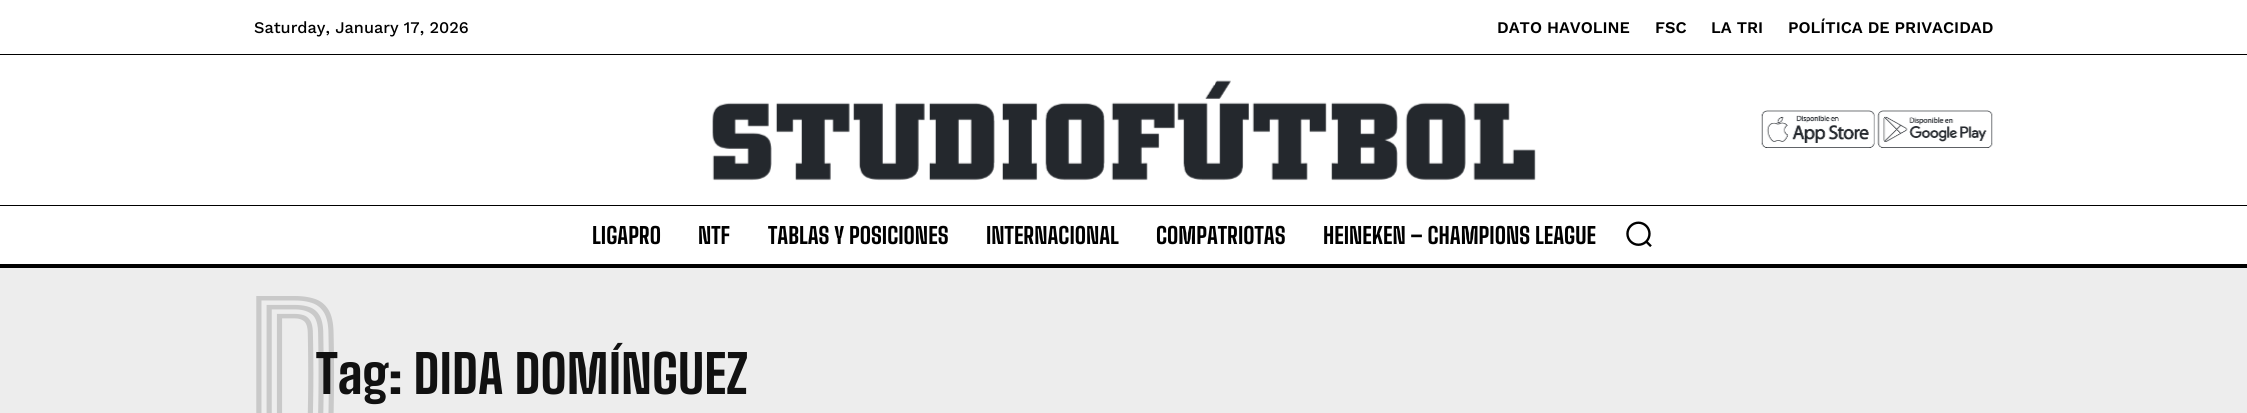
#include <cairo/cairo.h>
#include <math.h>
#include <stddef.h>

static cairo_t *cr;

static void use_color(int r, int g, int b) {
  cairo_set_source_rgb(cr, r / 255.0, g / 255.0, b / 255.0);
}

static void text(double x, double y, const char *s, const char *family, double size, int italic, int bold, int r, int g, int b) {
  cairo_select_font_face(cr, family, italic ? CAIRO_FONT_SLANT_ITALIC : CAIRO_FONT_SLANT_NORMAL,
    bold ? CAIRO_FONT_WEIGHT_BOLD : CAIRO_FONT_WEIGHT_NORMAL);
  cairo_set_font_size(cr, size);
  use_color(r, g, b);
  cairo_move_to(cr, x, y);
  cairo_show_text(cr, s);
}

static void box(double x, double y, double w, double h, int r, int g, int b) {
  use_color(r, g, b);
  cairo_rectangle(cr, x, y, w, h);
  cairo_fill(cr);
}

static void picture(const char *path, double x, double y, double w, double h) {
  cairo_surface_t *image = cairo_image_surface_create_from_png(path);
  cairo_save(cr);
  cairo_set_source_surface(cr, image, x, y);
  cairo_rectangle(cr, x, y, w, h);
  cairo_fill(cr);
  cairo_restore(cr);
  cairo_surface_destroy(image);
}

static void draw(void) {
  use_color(255, 255, 255);
  cairo_paint(cr);
  box(0, 54, 2247, 1, 0, 0, 0);
  picture("img_01.png", 712, 80, 824, 101);
  picture("img_02.png", 1761, 110, 114, 38);
  picture("img_03.png", 1877, 110, 116, 38);
  box(0, 205, 2247, 1, 0, 0, 0);
  box(0, 264, 2247, 4, 0, 0, 0);
  picture("img_04.png", 1626, 221, 26, 26);
  box(0, 268, 2247, 145, 237, 237, 237);
  text(254, 33, "Saturday, January 17, 2026", "Work Sans Medium", 16.25, 0, 0, 0, 0, 0);
  text(1497, 33, "DATO HAVOLINE", "Work Sans SemiBold", 16.25, 0, 0, 0, 0, 0);
  text(1655, 33, "FSC", "Work Sans SemiBold", 16.25, 0, 0, 0, 0, 0);
  text(1711, 33, "LA TRI", "Work Sans SemiBold", 16.25, 0, 0, 0, 0, 0);
  text(1788, 33, "POLÍTICA DE PRIVACIDAD", "Work Sans SemiBold", 16.25, 0, 0, 0, 0, 0);
  text(592, 244, "LIGAPRO", "Big Shoulders Text ExtraBold", 22.5, 0, 0, 0, 0, 0);
  text(698, 244, "NTF", "Big Shoulders Text ExtraBold", 22.5, 0, 0, 0, 0, 0);
  text(768, 244, "TABLAS Y POSICIONES", "Big Shoulders Text ExtraBold", 22.5, 0, 0, 0, 0, 0);
  text(986, 244, "INTERNACIONAL", "Big Shoulders Text ExtraBold", 22.5, 0, 0, 0, 0, 0);
  text(1156, 244, "COMPATRIOTAS", "Big Shoulders Text ExtraBold", 22.5, 0, 0, 0, 0, 0);
  text(1323, 244, "HEINEKEN – CHAMPIONS LEAGUE", "Big Shoulders Text ExtraBold", 22.5, 0, 0, 0, 0, 0);
  text(246, 452, "D", "Big Shoulders Inline Text ExtraBold", 195, 0, 0, 201, 201, 201);
  text(316, 394, "Tag: DIDA DOMÍNGUEZ", "Big Shoulders Text ExtraBold", 52.5, 0, 0, 17, 17, 17);
}

int main(void) {
  cairo_surface_t *surface = cairo_image_surface_create(CAIRO_FORMAT_RGB24, 2247, 413);
  cr = cairo_create(surface);
  cairo_font_options_t *options = cairo_font_options_create();
  cairo_font_options_set_hint_metrics(options, CAIRO_HINT_METRICS_OFF);
  cairo_font_options_set_hint_style(options, CAIRO_HINT_STYLE_NONE);
  cairo_set_font_options(cr, options);
  cairo_set_miter_limit(cr, 4);
  draw();
  cairo_surface_write_to_png(surface, "out.png");
  cairo_font_options_destroy(options);
  cairo_destroy(cr);
  cairo_surface_destroy(surface);
  return 0;
}
